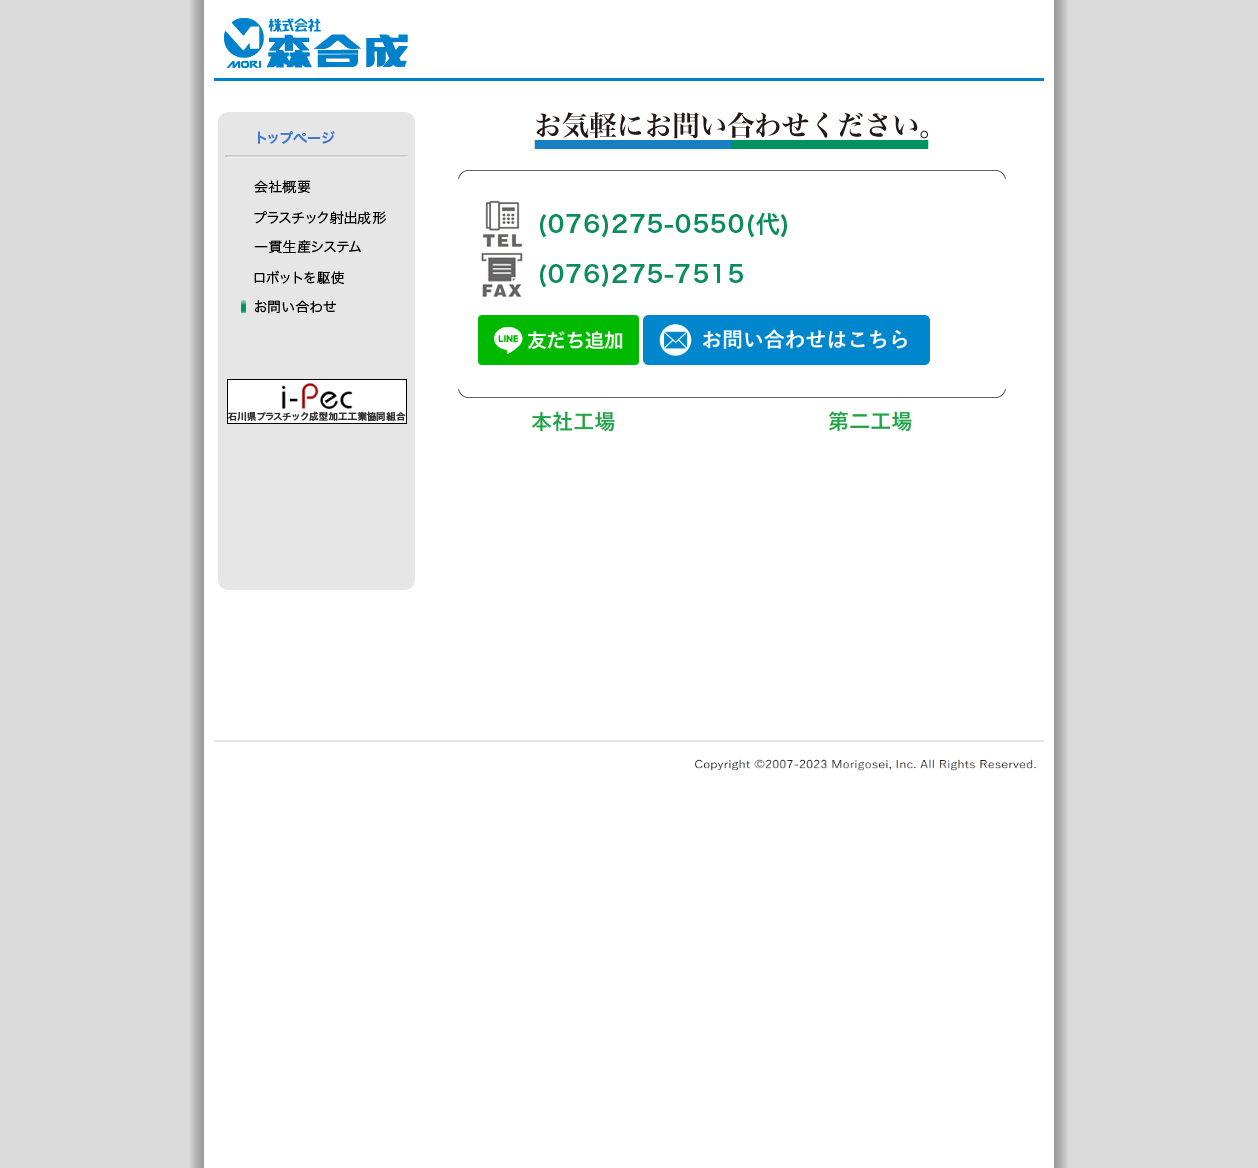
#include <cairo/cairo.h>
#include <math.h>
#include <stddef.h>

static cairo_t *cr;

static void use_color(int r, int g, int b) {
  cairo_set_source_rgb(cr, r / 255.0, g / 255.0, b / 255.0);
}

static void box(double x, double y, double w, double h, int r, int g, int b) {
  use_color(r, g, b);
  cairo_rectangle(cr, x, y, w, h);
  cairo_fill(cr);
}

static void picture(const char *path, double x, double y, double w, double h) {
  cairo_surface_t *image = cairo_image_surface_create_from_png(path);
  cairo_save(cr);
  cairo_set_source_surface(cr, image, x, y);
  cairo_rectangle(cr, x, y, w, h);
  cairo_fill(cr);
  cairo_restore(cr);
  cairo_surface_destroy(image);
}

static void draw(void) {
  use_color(218, 219, 218);
  cairo_paint(cr);
  picture("img_01.png", 189, 0, 879, 1168);
  picture("img_02.png", 224, 18, 184, 50);
  box(214, 78, 830, 3, 0, 129, 204);
  picture("img_03.png", 218, 112, 197, 9);
  picture("img_04.png", 218, 121, 197, 30);
  picture("img_05.png", 218, 151, 197, 10);
  box(218, 161, 197, 11, 230, 230, 230);
  picture("img_06.png", 218, 172, 197, 30);
  picture("img_07.png", 218, 202, 197, 30);
  picture("img_08.png", 218, 232, 197, 30);
  picture("img_09.png", 218, 262, 197, 30);
  picture("img_10.png", 218, 292, 197, 30);
  box(218, 322, 197, 50, 230, 230, 230);
  picture("img_11.png", 218, 372, 197, 59);
  box(218, 431, 197, 149, 230, 230, 230);
  picture("img_12.png", 218, 580, 197, 10);
  picture("img_13.png", 534, 112, 395, 37);
  picture("img_14.png", 458, 170, 548, 9);
  picture("img_15.png", 483, 200, 304, 47);
  picture("img_16.png", 481, 252, 262, 46);
  picture("img_17.png", 478, 315, 161, 50);
  picture("img_18.png", 643, 315, 287, 50);
  picture("img_19.png", 458, 389, 548, 9);
  picture("img_20.png", 531, 411, 84, 21);
  picture("img_21.png", 828, 411, 84, 20);
  box(214, 740, 830, 2, 228, 228, 230);
  picture("img_22.png", 694, 759, 343, 12);
}

int main(void) {
  cairo_surface_t *surface = cairo_image_surface_create(CAIRO_FORMAT_RGB24, 1258, 1168);
  cr = cairo_create(surface);
  cairo_font_options_t *options = cairo_font_options_create();
  cairo_font_options_set_hint_metrics(options, CAIRO_HINT_METRICS_OFF);
  cairo_font_options_set_hint_style(options, CAIRO_HINT_STYLE_NONE);
  cairo_set_font_options(cr, options);
  cairo_set_miter_limit(cr, 4);
  draw();
  cairo_surface_write_to_png(surface, "out.png");
  cairo_font_options_destroy(options);
  cairo_destroy(cr);
  cairo_surface_destroy(surface);
  return 0;
}
